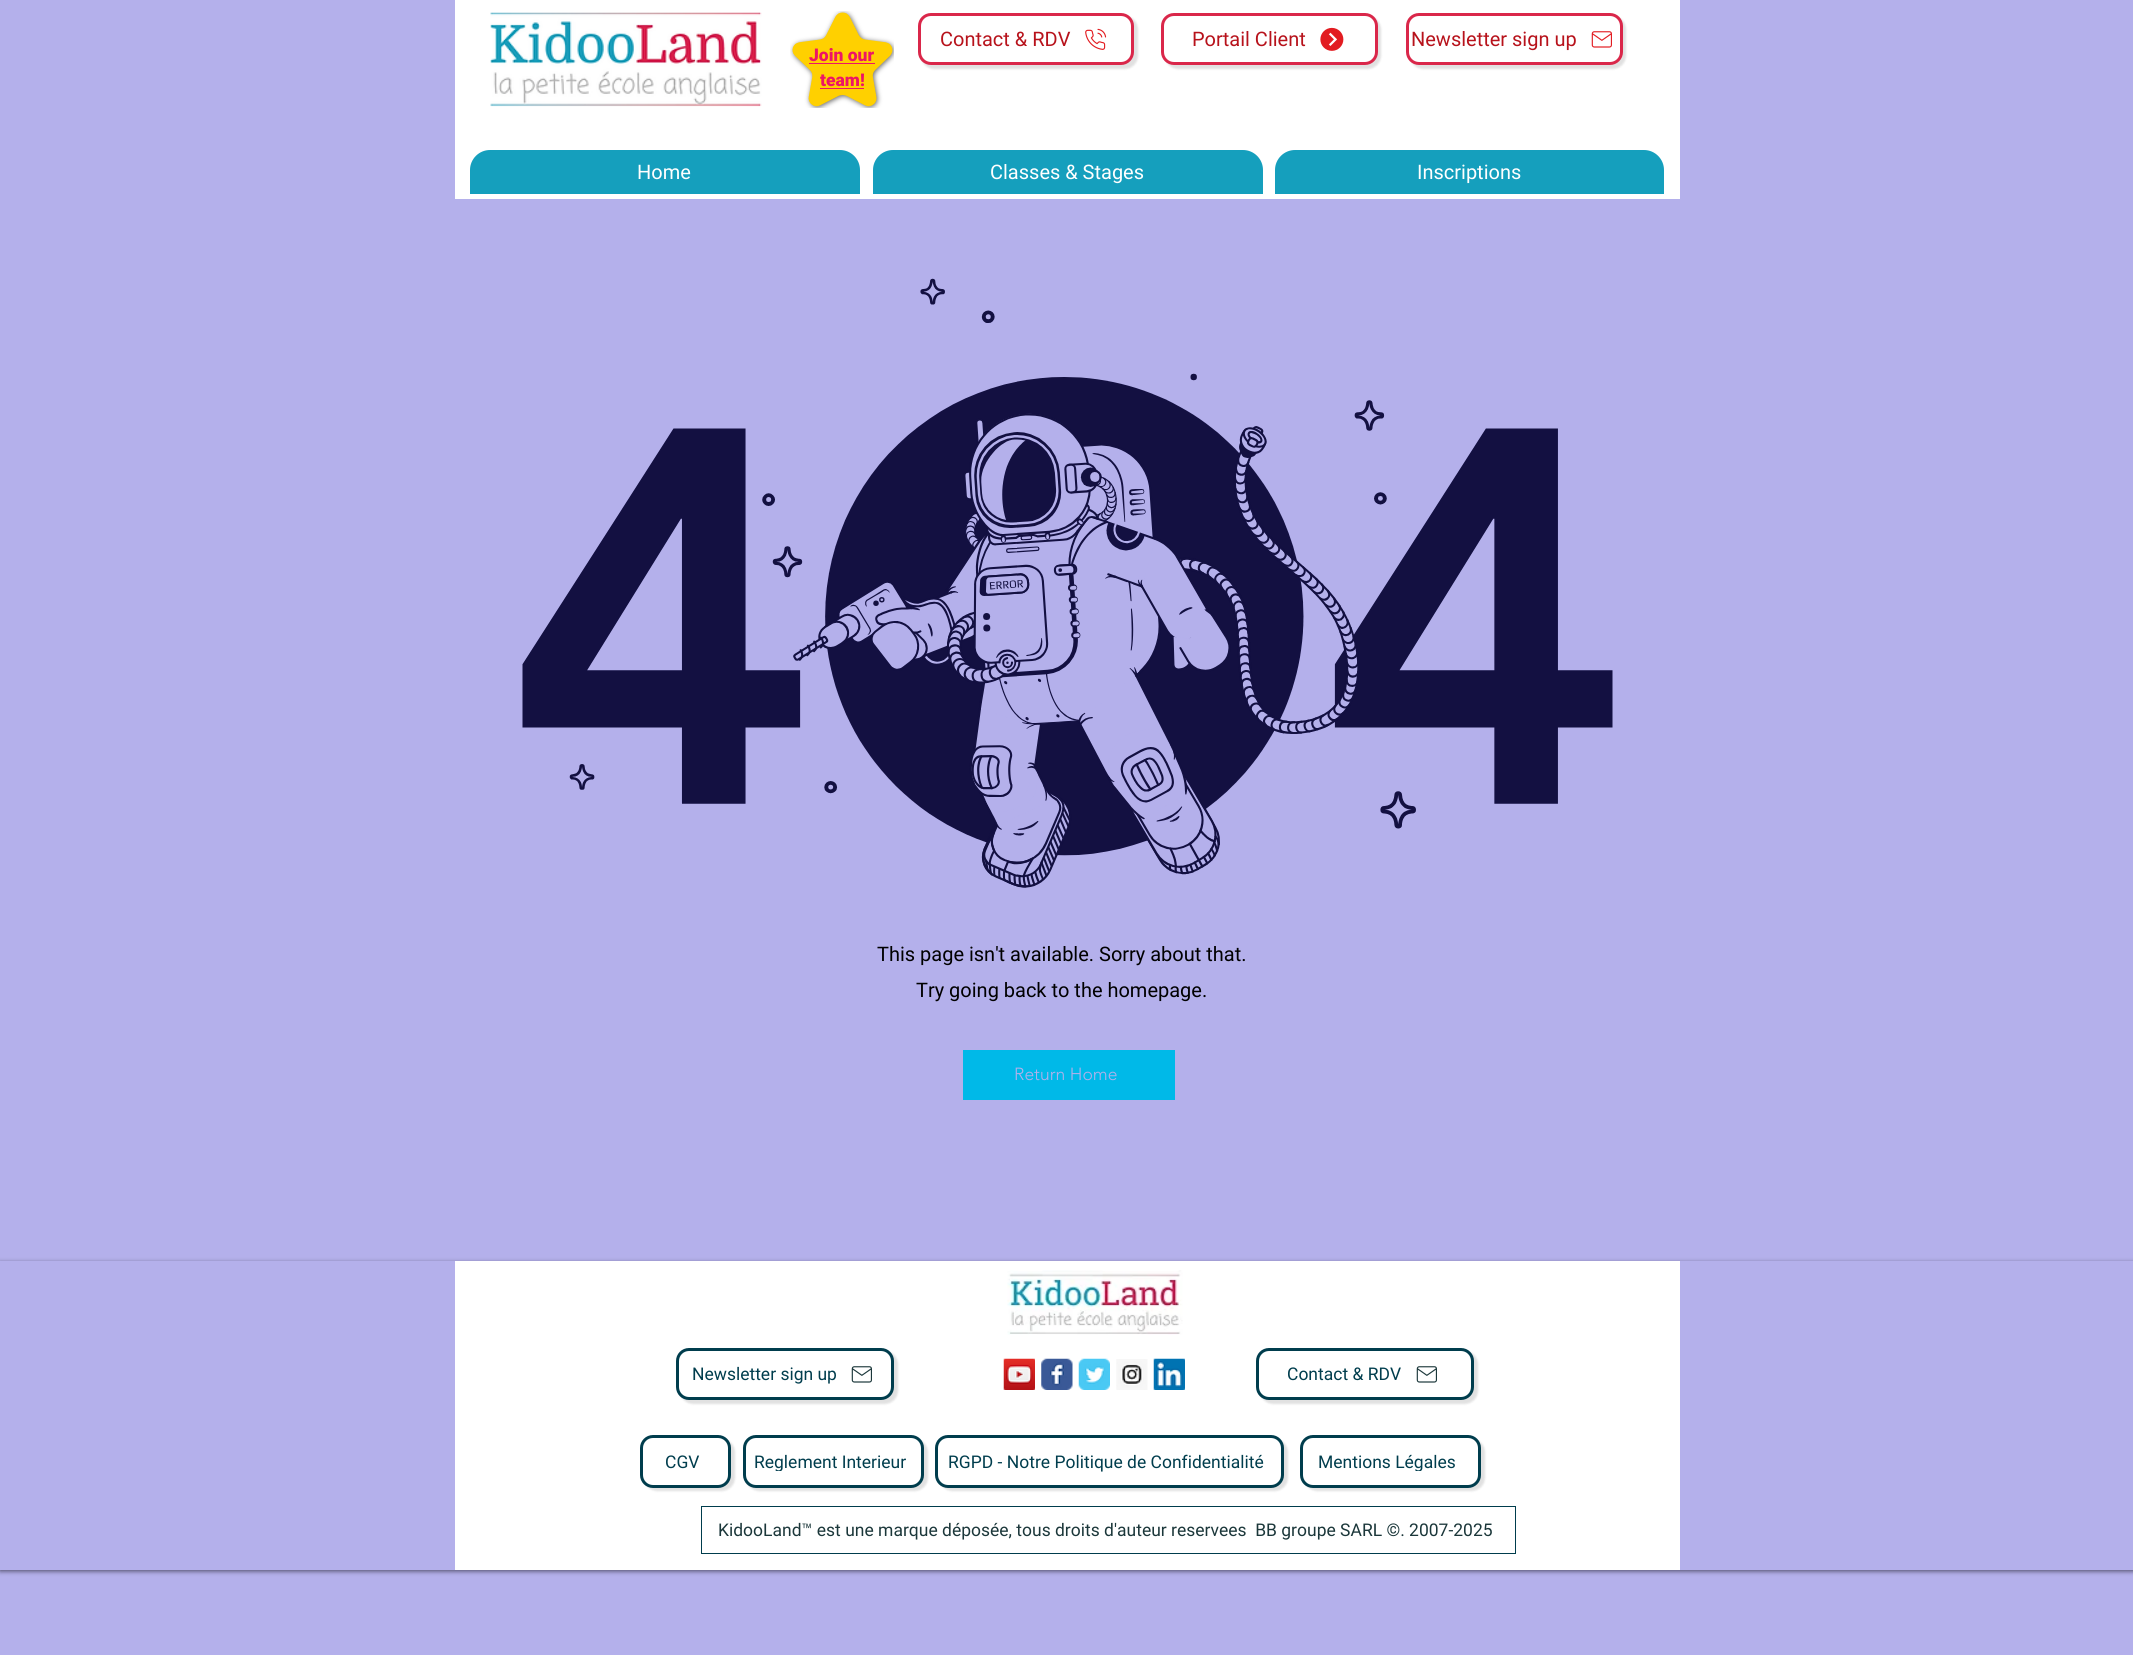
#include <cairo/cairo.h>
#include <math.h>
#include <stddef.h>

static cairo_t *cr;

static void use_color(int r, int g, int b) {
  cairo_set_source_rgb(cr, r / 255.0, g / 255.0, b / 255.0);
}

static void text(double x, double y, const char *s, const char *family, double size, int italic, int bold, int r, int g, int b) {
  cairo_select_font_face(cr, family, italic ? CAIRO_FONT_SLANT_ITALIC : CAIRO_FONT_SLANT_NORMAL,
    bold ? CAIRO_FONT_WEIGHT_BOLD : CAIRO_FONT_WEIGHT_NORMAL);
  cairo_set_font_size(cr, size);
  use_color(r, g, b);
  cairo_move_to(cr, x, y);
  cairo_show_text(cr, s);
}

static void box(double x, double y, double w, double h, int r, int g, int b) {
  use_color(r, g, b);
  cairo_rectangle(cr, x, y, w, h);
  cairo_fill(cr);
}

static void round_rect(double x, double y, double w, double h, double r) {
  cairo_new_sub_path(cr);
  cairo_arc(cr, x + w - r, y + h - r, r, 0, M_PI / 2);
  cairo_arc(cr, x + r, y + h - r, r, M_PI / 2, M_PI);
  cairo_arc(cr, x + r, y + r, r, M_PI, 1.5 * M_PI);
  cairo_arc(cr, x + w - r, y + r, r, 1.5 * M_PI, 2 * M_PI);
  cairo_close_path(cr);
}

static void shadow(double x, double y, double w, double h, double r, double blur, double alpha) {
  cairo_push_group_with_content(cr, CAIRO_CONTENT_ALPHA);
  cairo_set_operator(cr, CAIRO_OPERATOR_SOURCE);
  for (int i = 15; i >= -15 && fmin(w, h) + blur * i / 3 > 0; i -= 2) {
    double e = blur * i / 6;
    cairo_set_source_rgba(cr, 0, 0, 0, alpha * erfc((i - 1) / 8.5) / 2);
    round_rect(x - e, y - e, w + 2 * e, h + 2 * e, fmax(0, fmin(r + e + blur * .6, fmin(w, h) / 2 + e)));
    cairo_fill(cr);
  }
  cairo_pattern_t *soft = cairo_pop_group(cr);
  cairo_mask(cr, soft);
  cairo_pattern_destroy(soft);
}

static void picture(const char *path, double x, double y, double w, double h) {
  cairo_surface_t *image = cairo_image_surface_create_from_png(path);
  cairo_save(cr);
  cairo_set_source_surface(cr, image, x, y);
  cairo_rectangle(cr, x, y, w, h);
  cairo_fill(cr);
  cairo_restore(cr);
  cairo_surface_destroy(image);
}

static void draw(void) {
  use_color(180, 176, 235);
  cairo_paint(cr);
  box(455, 0, 1225, 199, 255, 255, 255);
  picture("img_01.png", 490, 12, 272, 95);
  picture("img_02.png", 790, 11, 104, 97);
  use_color(0, 0, 0);
  shadow(921, 16, 217, 53, 13, 1, 0.12);
  use_color(255, 255, 255);
  round_rect(919.5, 14.5, 213, 49, 11.5);
  cairo_fill_preserve(cr);
  use_color(218, 39, 74);
  cairo_set_line_width(cr, 3);
  cairo_stroke(cr);
  picture("img_03.png", 1085, 28, 22, 22);
  use_color(0, 0, 0);
  shadow(1165, 16, 216, 53, 13, 1, 0.12);
  use_color(255, 255, 255);
  round_rect(1162.5, 14.5, 214, 49, 11.5);
  cairo_fill_preserve(cr);
  use_color(218, 39, 74);
  cairo_stroke(cr);
  picture("img_04.png", 1320, 27, 24, 24);
  use_color(0, 0, 0);
  shadow(1410, 16, 216, 53, 13, 1, 0.12);
  use_color(255, 255, 255);
  round_rect(1407.5, 14.5, 214, 49, 11.5);
  cairo_fill_preserve(cr);
  use_color(218, 39, 74);
  cairo_stroke(cr);
  picture("img_05.png", 1591, 31, 21, 17);
  box(809, 63, 66, 1, 237, 21, 102);
  box(820, 88, 44, 1, 237, 21, 102);
  use_color(21, 159, 189);
  cairo_new_path(cr);
  cairo_move_to(cr, 490, 150);
  cairo_line_to(cr, 840, 150);
  cairo_curve_to(cr, 851, 150, 860, 159, 860, 170);
  cairo_line_to(cr, 860, 194);
  cairo_line_to(cr, 470, 194);
  cairo_line_to(cr, 470, 170);
  cairo_curve_to(cr, 470, 159, 479, 150, 490, 150);
  cairo_close_path(cr);
  cairo_fill(cr);
  cairo_new_path(cr);
  cairo_move_to(cr, 893, 150);
  cairo_line_to(cr, 1243, 150);
  cairo_curve_to(cr, 1254, 150, 1263, 159, 1263, 170);
  cairo_line_to(cr, 1263, 194);
  cairo_line_to(cr, 873, 194);
  cairo_line_to(cr, 873, 170);
  cairo_curve_to(cr, 873, 159, 882, 150, 893, 150);
  cairo_close_path(cr);
  cairo_fill(cr);
  cairo_new_path(cr);
  cairo_move_to(cr, 1295, 150);
  cairo_line_to(cr, 1644, 150);
  cairo_curve_to(cr, 1655, 150, 1664, 159, 1664, 170);
  cairo_line_to(cr, 1664, 194);
  cairo_line_to(cr, 1275, 194);
  cairo_line_to(cr, 1275, 170);
  cairo_curve_to(cr, 1275, 159, 1284, 150, 1295, 150);
  cairo_close_path(cr);
  cairo_fill(cr);
  picture("img_06.png", 522, 278, 1091, 610);
  box(963, 1050, 212, 50, 0, 185, 232);
  cairo_save(cr);
  cairo_set_fill_rule(cr, CAIRO_FILL_RULE_EVEN_ODD);
  cairo_new_path(cr);
  cairo_move_to(cr, 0, 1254);
  cairo_line_to(cr, 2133, 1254);
  cairo_line_to(cr, 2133, 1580);
  cairo_line_to(cr, 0, 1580);
  cairo_close_path(cr);
  cairo_move_to(cr, 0, 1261);
  cairo_line_to(cr, 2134, 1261);
  cairo_line_to(cr, 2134, 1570);
  cairo_line_to(cr, 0, 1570);
  cairo_close_path(cr);
  cairo_clip(cr);
  use_color(0, 0, 0);
  shadow(0, 1263, 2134, 308, 0, 2.5, 0.6);
  cairo_restore(cr);
  box(455, 1261, 1225, 309, 255, 255, 255);
  picture("img_07.png", 1007, 1270, 176, 65);
  use_color(0, 0, 0);
  shadow(680, 1351, 218, 53, 13, 1, 0.12);
  use_color(255, 255, 255);
  round_rect(677.5, 1349.5, 215, 49, 11.5);
  cairo_fill_preserve(cr);
  use_color(0, 61, 77);
  cairo_stroke(cr);
  picture("img_08.png", 851, 1366, 21, 17);
  picture("img_09.png", 1003, 1358, 32, 32);
  picture("img_10.png", 1041, 1358, 32, 32);
  picture("img_11.png", 1078, 1358, 32, 32);
  picture("img_12.png", 1116, 1359, 32, 31);
  picture("img_13.png", 1153, 1358, 32, 32);
  use_color(0, 0, 0);
  shadow(1260, 1351, 218, 53, 13, 1, 0.12);
  use_color(255, 255, 255);
  round_rect(1257.5, 1349.5, 215, 49, 11.5);
  cairo_fill_preserve(cr);
  use_color(0, 61, 77);
  cairo_stroke(cr);
  picture("img_08.png", 1416, 1366, 21, 17);
  use_color(0, 0, 0);
  shadow(644, 1439, 91, 52, 13, 1, 0.12);
  use_color(255, 255, 255);
  round_rect(641.5, 1436.5, 88, 50, 11.5);
  cairo_fill_preserve(cr);
  use_color(0, 61, 77);
  cairo_stroke(cr);
  use_color(0, 0, 0);
  shadow(746, 1439, 182, 52, 13, 1, 0.12);
  use_color(255, 255, 255);
  round_rect(744.5, 1436.5, 178, 50, 11.5);
  cairo_fill_preserve(cr);
  use_color(0, 61, 77);
  cairo_stroke(cr);
  use_color(0, 0, 0);
  shadow(939, 1439, 349, 52, 13, 1, 0.12);
  use_color(255, 255, 255);
  round_rect(936.5, 1436.5, 346, 50, 11.5);
  cairo_fill_preserve(cr);
  use_color(0, 61, 77);
  cairo_stroke(cr);
  use_color(0, 0, 0);
  shadow(1304, 1439, 181, 52, 13, 1, 0.12);
  use_color(255, 255, 255);
  round_rect(1301.5, 1436.5, 178, 50, 11.5);
  cairo_fill_preserve(cr);
  use_color(0, 61, 77);
  cairo_stroke(cr);
  cairo_rectangle(cr, 701.5, 1506.5, 814, 47);
  cairo_set_line_width(cr, 1);
  cairo_stroke(cr);
  text(940, 46, "Contact & RDV", "Roboto", 20, 0, 0, 183, 18, 27);
  text(1192, 46, "Portail Client", "Roboto", 20, 0, 0, 183, 18, 27);
  text(1411, 46, "Newsletter sign up", "Roboto", 20, 0, 0, 183, 18, 27);
  text(809, 61, "Join our", "Roboto Black", 17.5, 0, 0, 237, 21, 102);
  text(820, 86, "team!", "Roboto Black", 17.5, 0, 0, 237, 21, 102);
  text(637, 179, "Home", "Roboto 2", 20, 0, 0, 255, 255, 255);
  text(990, 179, "Classes & Stages", "Roboto 2", 20, 0, 0, 255, 255, 255);
  text(1417, 179, "Inscriptions", "Roboto 2", 20, 0, 0, 255, 255, 255);
  text(877, 961, "This page isn't available. Sorry about that.", "Roboto 2", 20, 0, 0, 0, 0, 0);
  text(916, 997, "Try going back to the homepage.", "Roboto 2", 20, 0, 0, 0, 0, 0);
  text(1014, 1080, "Return Home", "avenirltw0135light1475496 Light", 17.5, 0, 0, 180, 176, 235);
  text(692, 1380, "Newsletter sign up", "Roboto", 17.5, 0, 0, 0, 61, 77);
  text(1287, 1380, "Contact & RDV", "Roboto", 17.5, 0, 0, 0, 61, 77);
  text(665, 1468, "CGV", "Roboto", 17.5, 0, 0, 0, 61, 77);
  cairo_save(cr);
  cairo_rectangle(cr, 754, 1451, 152, 20);
  cairo_clip(cr);
  text(754, 1468, "Reglement Interieur", "Roboto", 17.5, 0, 0, 0, 61, 77);
  cairo_restore(cr);
  text(948, 1468, "RGPD - Notre Politique de Confidentialité", "Roboto", 17.5, 0, 0, 0, 61, 77);
  cairo_save(cr);
  cairo_rectangle(cr, 1319, 1451, 137, 20);
  cairo_clip(cr);
  text(1318, 1468, "Mentions Légales", "Roboto", 17.5, 0, 0, 0, 61, 77);
  cairo_restore(cr);
  text(718, 1536, "KidooLand™ est une marque déposée, tous droits d'auteur reservees  BB groupe SARL ©. 2007-2025", "Roboto 2", 17.5, 0, 0, 27, 55, 58);
}

int main(void) {
  cairo_surface_t *surface = cairo_image_surface_create(CAIRO_FORMAT_RGB24, 2133, 1655);
  cr = cairo_create(surface);
  cairo_font_options_t *options = cairo_font_options_create();
  cairo_font_options_set_hint_metrics(options, CAIRO_HINT_METRICS_OFF);
  cairo_font_options_set_hint_style(options, CAIRO_HINT_STYLE_NONE);
  cairo_set_font_options(cr, options);
  cairo_set_miter_limit(cr, 4);
  draw();
  cairo_surface_write_to_png(surface, "out.png");
  cairo_font_options_destroy(options);
  cairo_destroy(cr);
  cairo_surface_destroy(surface);
  return 0;
}
